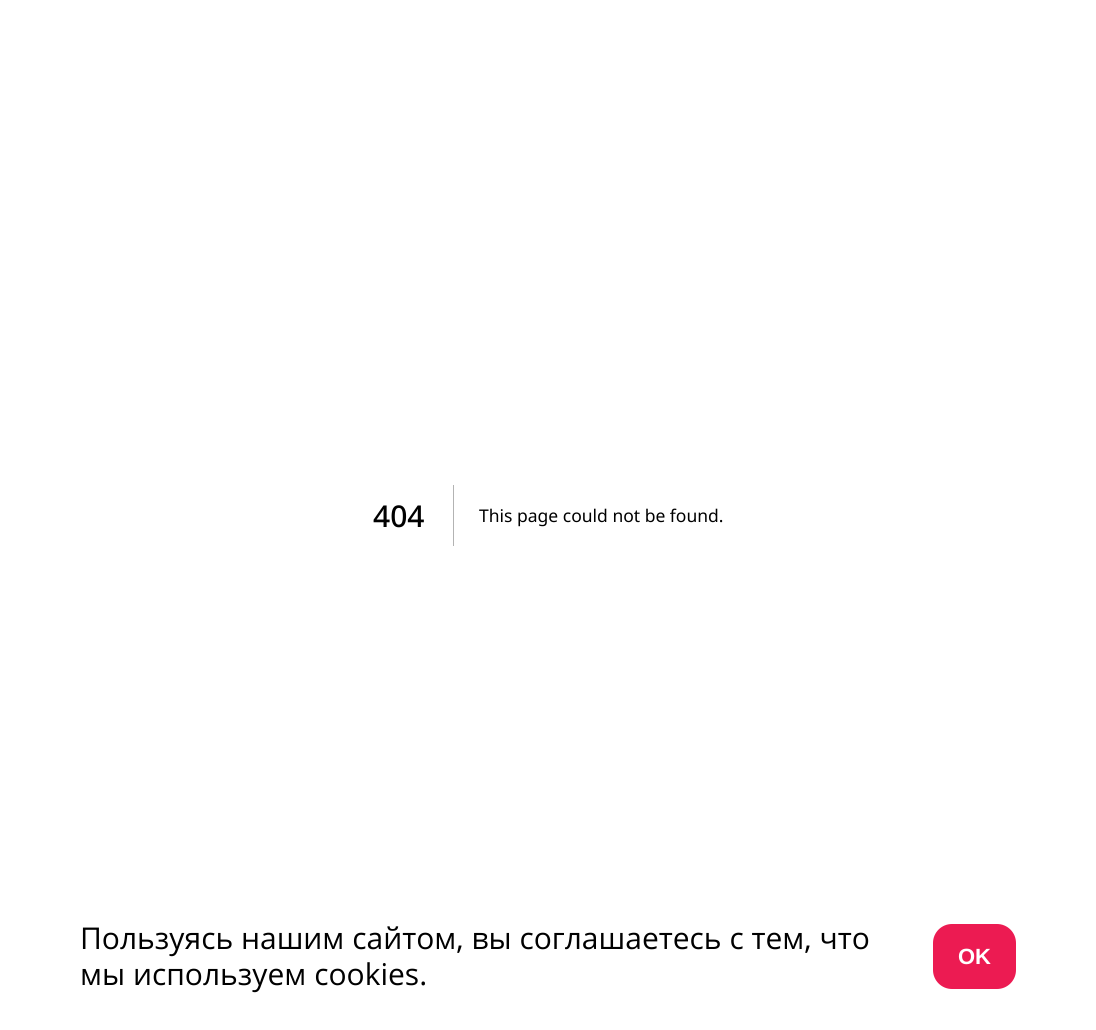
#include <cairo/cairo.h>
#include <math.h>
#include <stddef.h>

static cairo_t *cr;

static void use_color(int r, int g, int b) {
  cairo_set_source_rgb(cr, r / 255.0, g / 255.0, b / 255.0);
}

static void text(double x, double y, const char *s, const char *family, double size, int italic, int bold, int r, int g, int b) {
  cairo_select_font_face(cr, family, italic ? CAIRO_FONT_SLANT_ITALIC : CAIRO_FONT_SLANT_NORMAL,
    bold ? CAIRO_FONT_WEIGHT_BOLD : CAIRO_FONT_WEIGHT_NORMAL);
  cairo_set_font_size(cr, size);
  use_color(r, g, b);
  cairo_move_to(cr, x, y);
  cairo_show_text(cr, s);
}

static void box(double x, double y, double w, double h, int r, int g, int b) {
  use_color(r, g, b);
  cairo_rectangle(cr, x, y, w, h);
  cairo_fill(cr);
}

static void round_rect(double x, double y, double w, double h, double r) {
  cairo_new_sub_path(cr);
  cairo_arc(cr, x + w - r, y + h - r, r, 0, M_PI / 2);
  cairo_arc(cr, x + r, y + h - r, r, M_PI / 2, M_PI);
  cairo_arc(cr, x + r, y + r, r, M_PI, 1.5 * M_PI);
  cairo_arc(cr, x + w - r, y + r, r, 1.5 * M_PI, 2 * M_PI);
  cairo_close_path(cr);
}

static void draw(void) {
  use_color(255, 255, 255);
  cairo_paint(cr);
  box(453, 485, 1, 61, 179, 179, 179);
  use_color(236, 27, 82);
  round_rect(933, 924, 83, 65, 19);
  cairo_fill(cr);
  text(373, 527, "404", "Noto Sans Medium", 30, 0, 0, 0, 0, 0);
  text(479, 522, "This page could not be found.", "Noto Sans", 17.5, 0, 0, 0, 0, 0);
  text(80, 949, "Пользуясь нашим сайтом, вы соглашаетесь с тем, что", "Open Sans", 30, 0, 0, 0, 0, 0);
  text(80, 985, "мы используем cookies.", "Open Sans", 30, 0, 0, 0, 0, 0);
  text(958, 964, "OK", "Liberation Sans", 22, 0, 1, 255, 255, 255);
}

int main(void) {
  cairo_surface_t *surface = cairo_image_surface_create(CAIRO_FORMAT_RGB24, 1096, 1030);
  cr = cairo_create(surface);
  cairo_font_options_t *options = cairo_font_options_create();
  cairo_font_options_set_hint_metrics(options, CAIRO_HINT_METRICS_OFF);
  cairo_font_options_set_hint_style(options, CAIRO_HINT_STYLE_NONE);
  cairo_set_font_options(cr, options);
  cairo_set_miter_limit(cr, 4);
  draw();
  cairo_surface_write_to_png(surface, "out.png");
  cairo_font_options_destroy(options);
  cairo_destroy(cr);
  cairo_surface_destroy(surface);
  return 0;
}
